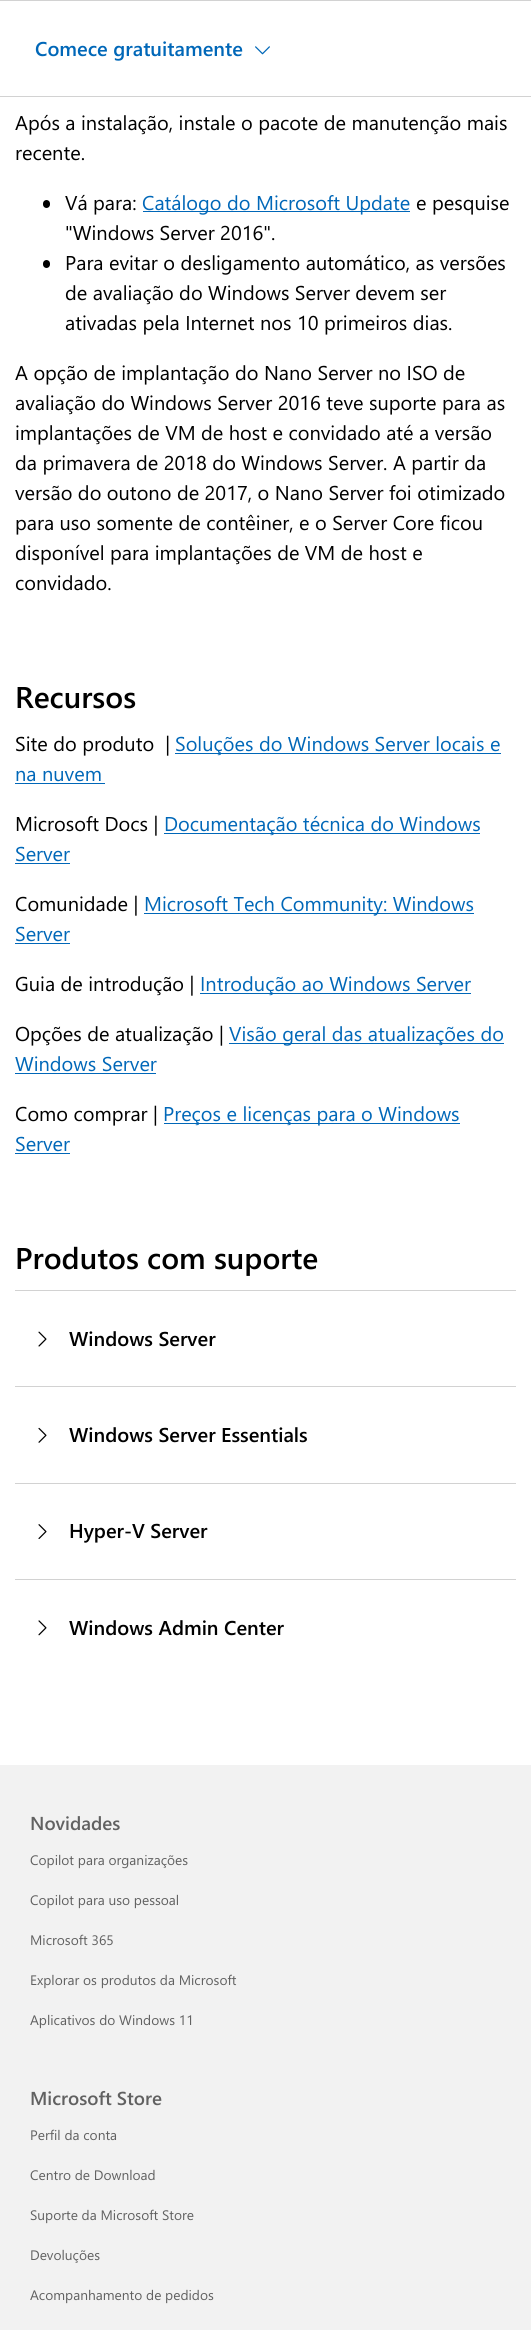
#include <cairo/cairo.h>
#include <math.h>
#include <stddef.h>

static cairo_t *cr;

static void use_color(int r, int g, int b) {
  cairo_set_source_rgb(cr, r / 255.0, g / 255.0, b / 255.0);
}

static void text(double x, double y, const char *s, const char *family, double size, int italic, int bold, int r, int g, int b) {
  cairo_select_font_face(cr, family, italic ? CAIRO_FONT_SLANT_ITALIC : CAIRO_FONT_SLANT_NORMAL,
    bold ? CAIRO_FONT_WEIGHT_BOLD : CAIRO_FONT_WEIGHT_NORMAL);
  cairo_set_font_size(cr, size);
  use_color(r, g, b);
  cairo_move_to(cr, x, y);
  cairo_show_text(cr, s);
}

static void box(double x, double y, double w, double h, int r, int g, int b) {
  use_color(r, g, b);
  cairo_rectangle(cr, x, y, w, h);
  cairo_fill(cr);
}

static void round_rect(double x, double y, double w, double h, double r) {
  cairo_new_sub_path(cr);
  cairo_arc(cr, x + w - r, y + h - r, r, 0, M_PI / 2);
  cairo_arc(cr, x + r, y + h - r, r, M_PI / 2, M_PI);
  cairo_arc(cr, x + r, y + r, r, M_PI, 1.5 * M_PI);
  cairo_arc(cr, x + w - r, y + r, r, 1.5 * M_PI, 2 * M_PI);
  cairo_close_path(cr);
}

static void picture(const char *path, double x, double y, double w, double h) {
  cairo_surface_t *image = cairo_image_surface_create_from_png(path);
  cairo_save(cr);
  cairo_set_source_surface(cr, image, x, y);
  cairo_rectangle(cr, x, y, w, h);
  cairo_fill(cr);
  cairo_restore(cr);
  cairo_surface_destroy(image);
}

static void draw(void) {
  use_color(255, 255, 255);
  cairo_paint(cr);
  box(0, 0, 531, 1, 210, 210, 210);
  box(0, 96, 531, 1, 210, 210, 210);
  picture("img_01.png", 255, 46, 15, 9);
  use_color(0, 0, 0);
  round_rect(43, 200, 7, 8, 3.5);
  cairo_fill(cr);
  box(143, 211, 267, 1, 0, 103, 184);
  use_color(0, 0, 0);
  round_rect(43, 260, 7, 8, 3.5);
  cairo_fill(cr);
  box(175, 753, 326, 1, 0, 103, 184);
  box(15, 783, 90, 1, 0, 103, 184);
  box(164, 833, 316, 1, 0, 103, 184);
  box(15, 863, 55, 1, 0, 103, 184);
  box(144, 913, 330, 1, 0, 103, 184);
  box(15, 943, 55, 1, 0, 103, 184);
  box(200, 993, 271, 1, 0, 103, 184);
  box(229, 1043, 275, 1, 0, 103, 184);
  box(15, 1073, 141, 1, 0, 103, 184);
  box(164, 1123, 296, 1, 0, 103, 184);
  box(15, 1153, 55, 1, 0, 103, 184);
  box(15, 1290, 501, 1, 210, 210, 210);
  picture("img_02.png", 38, 1331, 9, 16);
  box(15, 1386, 501, 1, 210, 210, 210);
  picture("img_03.png", 38, 1427, 9, 16);
  box(15, 1483, 501, 1, 210, 210, 210);
  picture("img_04.png", 38, 1524, 9, 15);
  box(15, 1579, 501, 1, 210, 210, 210);
  picture("img_05.png", 38, 1620, 9, 16);
  box(0, 1765, 531, 565, 242, 242, 242);
  text(35, 56, "Comece gratuitamente", "Segoe UI SemiBold", 20, 0, 0, 0, 103, 184);
  text(15, 130, "Após a instalação, instale o pacote de manutenção mais", "Segoe UI", 20, 0, 0, 0, 0, 0);
  text(15, 160, "recente.", "Segoe UI", 20, 0, 0, 0, 0, 0);
  text(65, 210, "Vá para:", "Segoe UI", 20, 0, 0, 0, 0, 0);
  text(142, 210, "Catálogo do Microsoft Update", "Segoe UI", 20, 0, 0, 0, 103, 184);
  text(416, 210, "e pesquise", "Segoe UI", 20, 0, 0, 0, 0, 0);
  text(65, 240, "\"Windows Server 2016\".", "Segoe UI", 20, 0, 0, 0, 0, 0);
  text(65, 270, "Para evitar o desligamento automático, as versões", "Segoe UI", 20, 0, 0, 0, 0, 0);
  text(65, 300, "de avaliação do Windows Server devem ser", "Segoe UI", 20, 0, 0, 0, 0, 0);
  text(65, 330, "ativadas pela Internet nos 10 primeiros dias.", "Segoe UI", 20, 0, 0, 0, 0, 0);
  text(15, 380, "A opção de implantação do Nano Server no ISO de", "Segoe UI", 20, 0, 0, 0, 0, 0);
  text(15, 410, "avaliação do Windows Server 2016 teve suporte para as", "Segoe UI", 20, 0, 0, 0, 0, 0);
  text(15, 440, "implantações de VM de host e convidado até a versão", "Segoe UI", 20, 0, 0, 0, 0, 0);
  text(15, 470, "da primavera de 2018 do Windows Server. A partir da", "Segoe UI", 20, 0, 0, 0, 0, 0);
  text(15, 500, "versão do outono de 2017, o Nano Server foi otimizado", "Segoe UI", 20, 0, 0, 0, 0, 0);
  text(15, 530, "para uso somente de contêiner, e o Server Core ficou", "Segoe UI", 20, 0, 0, 0, 0, 0);
  text(15, 560, "disponível para implantações de VM de host e", "Segoe UI", 20, 0, 0, 0, 0, 0);
  text(15, 590, "convidado.", "Segoe UI", 20, 0, 0, 0, 0, 0);
  text(15, 708, "Recursos", "Segoe UI SemiBold", 30, 0, 0, 0, 0, 0);
  text(15, 751, "Site do produto  |", "Segoe UI", 20, 0, 0, 0, 0, 0);
  text(175, 751, "Soluções do Windows Server locais e", "Segoe UI", 20, 0, 0, 0, 103, 184);
  text(15, 781, "na nuvem", "Segoe UI", 20, 0, 0, 0, 103, 184);
  text(15, 831, "Microsoft Docs |", "Segoe UI", 20, 0, 0, 0, 0, 0);
  text(164, 831, "Documentação técnica do Windows", "Segoe UI", 20, 0, 0, 0, 103, 184);
  text(15, 861, "Server", "Segoe UI", 20, 0, 0, 0, 103, 184);
  text(15, 911, "Comunidade |", "Segoe UI", 20, 0, 0, 0, 0, 0);
  text(144, 911, "Microsoft Tech Community: Windows", "Segoe UI", 20, 0, 0, 0, 103, 184);
  text(15, 941, "Server", "Segoe UI", 20, 0, 0, 0, 103, 184);
  text(15, 991, "Guia de introdução |", "Segoe UI", 20, 0, 0, 0, 0, 0);
  text(200, 991, "Introdução ao Windows Server", "Segoe UI", 20, 0, 0, 0, 103, 184);
  text(15, 1041, "Opções de atualização |", "Segoe UI", 20, 0, 0, 0, 0, 0);
  text(229, 1041, "Visão geral das atualizações do", "Segoe UI", 20, 0, 0, 0, 103, 184);
  text(15, 1071, "Windows Server", "Segoe UI", 20, 0, 0, 0, 103, 184);
  text(15, 1121, "Como comprar |", "Segoe UI", 20, 0, 0, 0, 0, 0);
  text(163, 1121, "Preços e licenças para o Windows", "Segoe UI", 20, 0, 0, 0, 103, 184);
  text(15, 1151, "Server", "Segoe UI", 20, 0, 0, 0, 103, 184);
  text(15, 1269, "Produtos com suporte", "Segoe UI SemiBold", 30, 0, 0, 0, 0, 0);
  text(69, 1346, "Windows Server", "Segoe UI SemiBold", 20, 0, 0, 0, 0, 0);
  text(69, 1442, "Windows Server Essentials", "Segoe UI SemiBold", 20, 0, 0, 0, 0, 0);
  text(69, 1538, "Hyper-V Server", "Segoe UI SemiBold", 20, 0, 0, 0, 0, 0);
  text(69, 1635, "Windows Admin Center", "Segoe UI SemiBold", 20, 0, 0, 0, 0, 0);
  text(30, 1830, "Novidades", "Segoe UI SemiBold", 18.75, 0, 0, 97, 97, 97);
  text(30, 1865, "Copilot para organizações", "Segoe UI", 13.75, 0, 0, 97, 97, 97);
  text(30, 1905, "Copilot para uso pessoal", "Segoe UI", 13.75, 0, 0, 97, 97, 97);
  text(30, 1945, "Microsoft 365", "Segoe UI", 13.75, 0, 0, 97, 97, 97);
  text(30, 1985, "Explorar os produtos da Microsoft", "Segoe UI", 13.75, 0, 0, 97, 97, 97);
  text(30, 2025, "Aplicativos do Windows 11", "Segoe UI", 13.75, 0, 0, 97, 97, 97);
  text(30, 2105, "Microsoft Store", "Segoe UI SemiBold", 18.75, 0, 0, 97, 97, 97);
  text(30, 2140, "Perfil da conta", "Segoe UI", 13.75, 0, 0, 97, 97, 97);
  text(30, 2180, "Centro de Download", "Segoe UI", 13.75, 0, 0, 97, 97, 97);
  text(30, 2220, "Suporte da Microsoft Store", "Segoe UI", 13.75, 0, 0, 97, 97, 97);
  text(30, 2260, "Devoluções", "Segoe UI", 13.75, 0, 0, 97, 97, 97);
  text(30, 2300, "Acompanhamento de pedidos", "Segoe UI", 13.75, 0, 0, 97, 97, 97);
}

int main(void) {
  cairo_surface_t *surface = cairo_image_surface_create(CAIRO_FORMAT_RGB24, 531, 2330);
  cr = cairo_create(surface);
  cairo_font_options_t *options = cairo_font_options_create();
  cairo_font_options_set_hint_metrics(options, CAIRO_HINT_METRICS_OFF);
  cairo_font_options_set_hint_style(options, CAIRO_HINT_STYLE_NONE);
  cairo_set_font_options(cr, options);
  cairo_set_miter_limit(cr, 4);
  draw();
  cairo_surface_write_to_png(surface, "out.png");
  cairo_font_options_destroy(options);
  cairo_destroy(cr);
  cairo_surface_destroy(surface);
  return 0;
}
